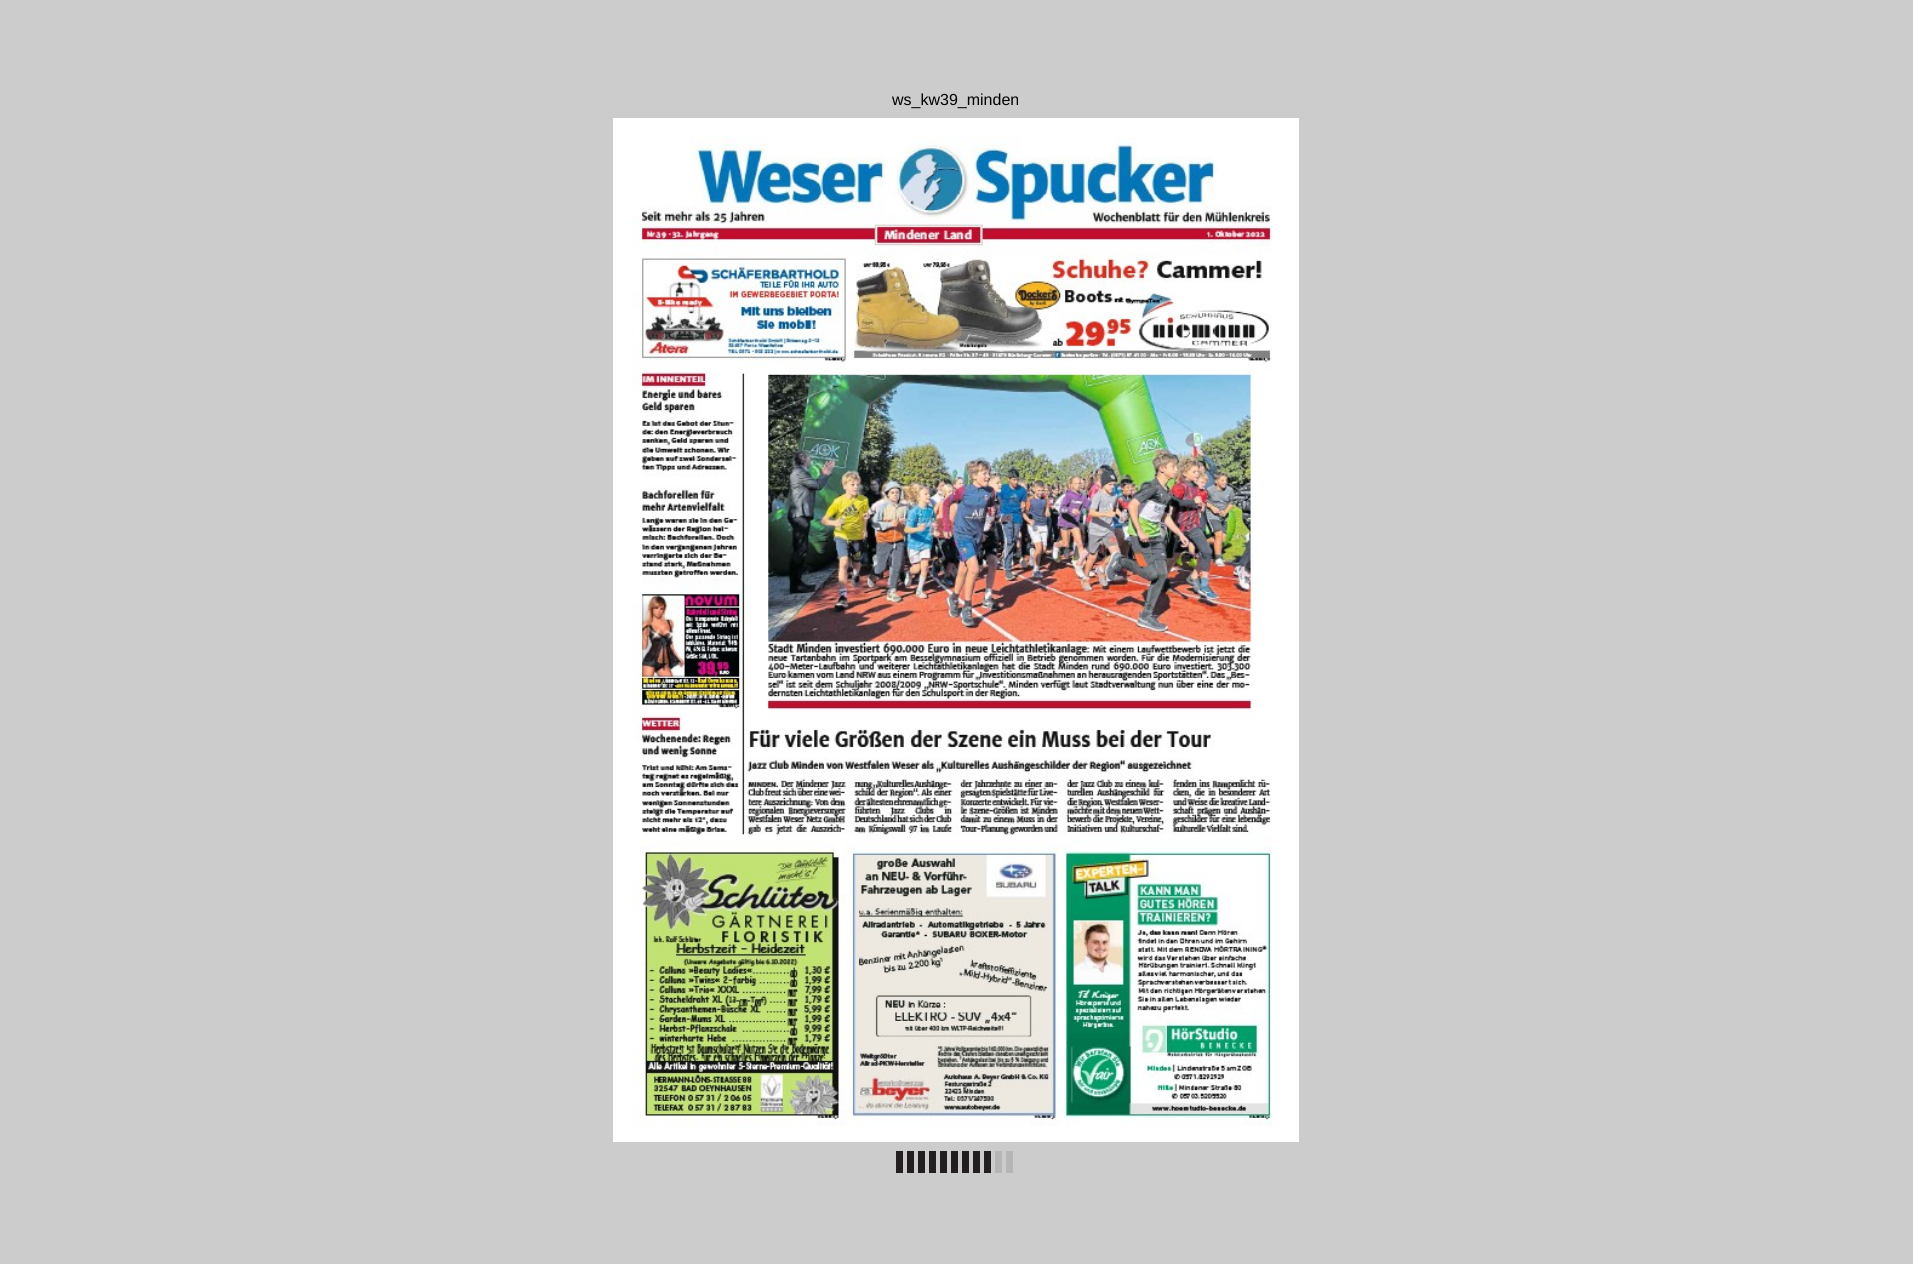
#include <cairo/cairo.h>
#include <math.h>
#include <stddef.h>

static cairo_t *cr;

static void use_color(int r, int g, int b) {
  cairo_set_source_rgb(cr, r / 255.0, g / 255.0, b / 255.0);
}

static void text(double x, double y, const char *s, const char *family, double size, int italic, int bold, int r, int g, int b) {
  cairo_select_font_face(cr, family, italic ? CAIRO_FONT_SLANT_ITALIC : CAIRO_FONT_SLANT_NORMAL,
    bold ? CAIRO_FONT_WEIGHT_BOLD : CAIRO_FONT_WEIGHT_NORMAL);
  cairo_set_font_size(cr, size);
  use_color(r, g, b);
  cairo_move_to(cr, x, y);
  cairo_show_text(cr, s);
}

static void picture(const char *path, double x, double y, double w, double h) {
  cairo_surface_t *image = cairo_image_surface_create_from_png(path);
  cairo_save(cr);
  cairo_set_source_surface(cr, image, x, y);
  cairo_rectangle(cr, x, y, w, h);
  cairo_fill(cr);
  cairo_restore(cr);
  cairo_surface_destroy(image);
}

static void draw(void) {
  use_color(204, 204, 204);
  cairo_paint(cr);
  picture("img_01.png", 613, 118, 686, 1024);
  picture("img_02.png", 896, 1151, 117, 22);
  text(892, 105, "ws_kw39_minden", "Liberation Sans", 16, 0, 0, 0, 0, 0);
}

int main(void) {
  cairo_surface_t *surface = cairo_image_surface_create(CAIRO_FORMAT_RGB24, 1913, 1264);
  cr = cairo_create(surface);
  cairo_font_options_t *options = cairo_font_options_create();
  cairo_font_options_set_hint_metrics(options, CAIRO_HINT_METRICS_OFF);
  cairo_font_options_set_hint_style(options, CAIRO_HINT_STYLE_NONE);
  cairo_set_font_options(cr, options);
  cairo_set_miter_limit(cr, 4);
  draw();
  cairo_surface_write_to_png(surface, "out.png");
  cairo_font_options_destroy(options);
  cairo_destroy(cr);
  cairo_surface_destroy(surface);
  return 0;
}
